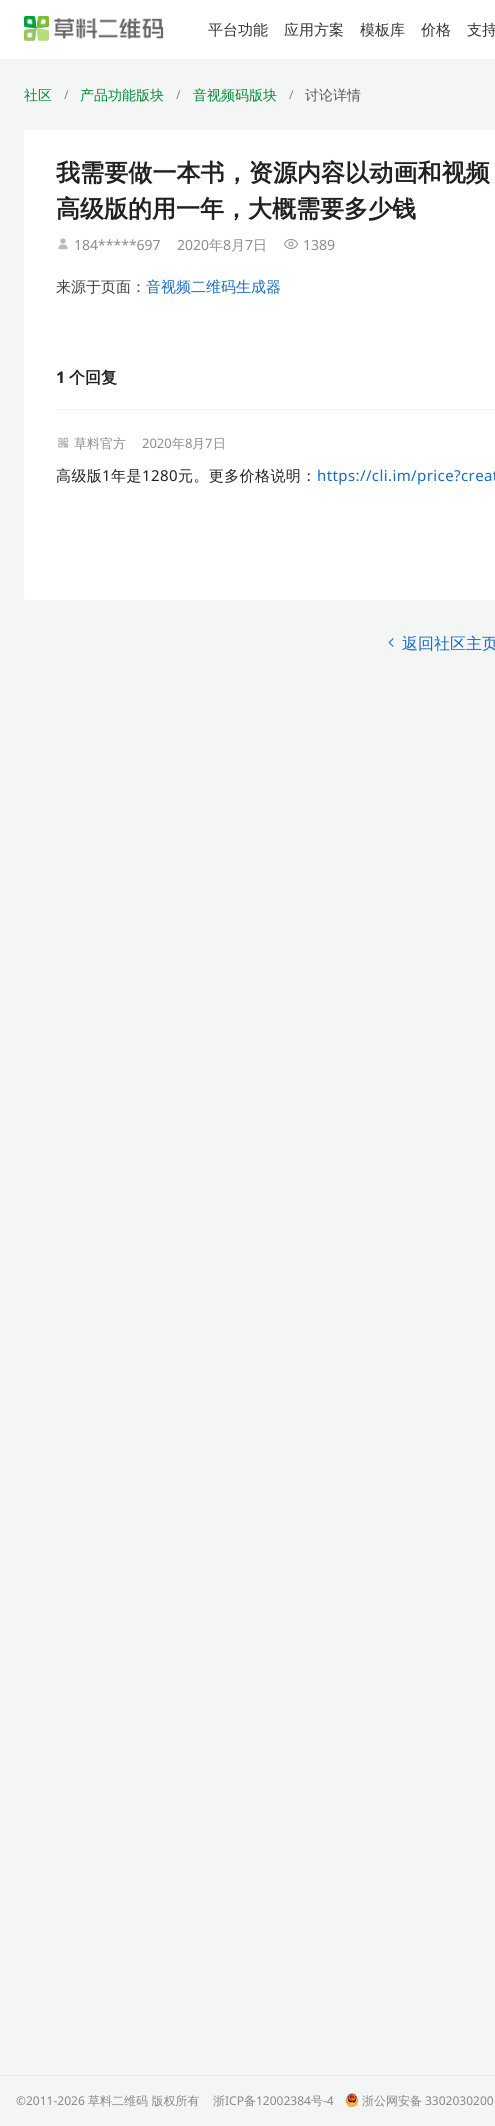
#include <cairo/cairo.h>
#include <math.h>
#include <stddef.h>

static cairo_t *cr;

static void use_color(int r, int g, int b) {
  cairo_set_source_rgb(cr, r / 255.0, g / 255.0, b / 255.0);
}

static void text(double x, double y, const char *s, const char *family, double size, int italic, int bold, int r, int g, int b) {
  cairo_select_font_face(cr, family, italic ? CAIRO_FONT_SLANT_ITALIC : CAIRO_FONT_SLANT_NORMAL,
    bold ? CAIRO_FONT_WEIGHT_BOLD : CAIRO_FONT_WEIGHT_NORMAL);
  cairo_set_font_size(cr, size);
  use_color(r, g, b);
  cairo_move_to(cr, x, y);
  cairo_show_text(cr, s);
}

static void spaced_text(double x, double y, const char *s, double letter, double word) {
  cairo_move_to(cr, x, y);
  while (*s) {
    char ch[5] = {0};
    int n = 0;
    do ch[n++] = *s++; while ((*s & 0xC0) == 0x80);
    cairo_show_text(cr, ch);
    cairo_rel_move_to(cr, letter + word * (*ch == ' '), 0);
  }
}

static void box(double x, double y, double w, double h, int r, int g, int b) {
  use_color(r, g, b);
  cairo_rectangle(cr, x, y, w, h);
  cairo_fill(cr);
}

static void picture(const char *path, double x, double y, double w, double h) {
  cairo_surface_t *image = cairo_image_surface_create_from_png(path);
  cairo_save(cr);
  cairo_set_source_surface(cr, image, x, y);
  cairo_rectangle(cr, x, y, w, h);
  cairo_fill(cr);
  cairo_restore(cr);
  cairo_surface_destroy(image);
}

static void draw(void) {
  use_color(244, 245, 245);
  cairo_paint(cr);
  box(0, 0, 495, 59, 255, 255, 255);
  picture("img_01.png", 24, 16, 140, 25);
  cairo_new_path(cr);
  cairo_move_to(cr, 26, 130);
  cairo_line_to(cr, 495, 130);
  cairo_curve_to(cr, 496, 130, 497, 131, 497, 132);
  cairo_line_to(cr, 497, 329);
  cairo_line_to(cr, 24, 329);
  cairo_line_to(cr, 24, 132);
  cairo_curve_to(cr, 24, 131, 25, 130, 26, 130);
  cairo_close_path(cr);
  cairo_fill(cr);
  picture("img_02.png", 58, 238, 10, 12);
  picture("img_03.png", 284, 239, 14, 10);
  cairo_new_path(cr);
  cairo_move_to(cr, 24, 329);
  cairo_line_to(cr, 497, 329);
  cairo_line_to(cr, 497, 598);
  cairo_curve_to(cr, 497, 599, 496, 600, 495, 600);
  cairo_line_to(cr, 26, 600);
  cairo_curve_to(cr, 25, 600, 24, 599, 24, 598);
  cairo_close_path(cr);
  cairo_fill(cr);
  box(56, 409, 439, 1, 237, 239, 240);
  picture("img_04.png", 58, 437, 11, 11);
  use_color(22, 107, 199);
  cairo_new_path(cr);
  cairo_move_to(cr, 389.5, 642);
  cairo_line_to(cr, 393.5, 646);
  cairo_line_to(cr, 393, 647);
  cairo_line_to(cr, 388.5, 642.5);
  cairo_close_path(cr);
  cairo_fill(cr);
  cairo_new_path(cr);
  cairo_move_to(cr, 393, 638);
  cairo_line_to(cr, 393.5, 639);
  cairo_line_to(cr, 389.5, 643);
  cairo_line_to(cr, 388.5, 642.5);
  cairo_close_path(cr);
  cairo_fill(cr);
  box(0, 2075, 495, 1, 228, 230, 231);
  picture("img_05.png", 345, 2093, 14, 14);
  text(208, 35, "平台功能", "WenQuanYi Zen Hei Medium", 15, 0, 0, 51, 51, 51);
  text(284, 35, "应用方案", "WenQuanYi Zen Hei Medium", 15, 0, 0, 51, 51, 51);
  text(360, 35, "模板库", "WenQuanYi Zen Hei Medium", 15, 0, 0, 51, 51, 51);
  text(421, 35, "价格", "WenQuanYi Zen Hei Medium", 15, 0, 0, 51, 51, 51);
  text(467, 35, "支持", "WenQuanYi Zen Hei Medium", 15, 0, 0, 51, 51, 51);
  text(24, 100, "社区", "WenQuanYi Zen Hei Medium", 14, 0, 0, 0, 140, 51);
  text(64, 99, "/", "Noto Sans", 12, 0, 0, 134, 135, 135);
  text(80, 100, "产品功能版块", "WenQuanYi Zen Hei Medium", 14, 0, 0, 0, 140, 51);
  text(176, 99, "/", "Noto Sans", 12, 0, 0, 134, 135, 135);
  text(193, 100, "音视频码版块", "WenQuanYi Zen Hei Medium", 14, 0, 0, 0, 140, 51);
  text(289, 99, "/", "Noto Sans", 12, 0, 0, 134, 135, 135);
  text(305, 100, "讨论详情", "WenQuanYi Zen Hei Medium", 14, 0, 0, 85, 86, 86);
  cairo_select_font_face(cr, "WenQuanYi Zen Hei", CAIRO_FONT_SLANT_NORMAL, CAIRO_FONT_WEIGHT_BOLD);
  cairo_set_font_size(cr, 24);
  use_color(33, 33, 33);
  spaced_text(56, 181, "我需要做一本书，资源内容以动画和视频", 0.1, 0);
  text(56, 217, "高级版的用一年，大概需要多少钱", "WenQuanYi Zen Hei", 24, 0, 1, 33, 33, 33);
  text(74, 250, "184*****697", "Noto Sans", 14, 0, 0, 140, 140, 140);
  text(177, 250, "2020", "Noto Sans", 14, 0, 0, 140, 140, 140);
  text(209, 250, "年", "WenQuanYi Zen Hei Medium", 14, 0, 0, 140, 140, 140);
  text(223, 250, "8", "Noto Sans", 14, 0, 0, 140, 140, 140);
  text(231, 250, "月", "WenQuanYi Zen Hei Medium", 14, 0, 0, 140, 140, 140);
  text(245, 250, "7", "Noto Sans", 14, 0, 0, 140, 140, 140);
  text(253, 250, "日", "WenQuanYi Zen Hei Medium", 14, 0, 0, 140, 140, 140);
  text(303, 250, "1389", "Noto Sans", 14, 0, 0, 140, 140, 140);
  text(56, 292, "来源于页面：", "WenQuanYi Zen Hei Medium", 15, 0, 0, 64, 64, 64);
  text(146, 292, "音视频二维码生成器", "WenQuanYi Zen Hei Medium", 15, 0, 0, 22, 107, 199);
  text(56, 383, "1", "Noto Sans", 16, 0, 1, 33, 33, 33);
  text(69, 383, "个回复", "WenQuanYi Zen Hei", 16, 0, 1, 33, 33, 33);
  text(74, 448, "草料官方", "WenQuanYi Zen Hei Medium", 13, 0, 0, 140, 140, 140);
  text(142, 448, "2020", "Noto Sans", 13, 0, 0, 140, 140, 140);
  text(172, 448, "年", "WenQuanYi Zen Hei Medium", 13, 0, 0, 140, 140, 140);
  text(185, 448, "8", "Noto Sans", 13, 0, 0, 140, 140, 140);
  text(192, 448, "月", "WenQuanYi Zen Hei Medium", 13, 0, 0, 140, 140, 140);
  text(205, 448, "7", "Noto Sans", 13, 0, 0, 140, 140, 140);
  text(213, 448, "日", "WenQuanYi Zen Hei Medium", 13, 0, 0, 140, 140, 140);
  cairo_set_font_size(cr, 15);
  use_color(33, 33, 33);
  spaced_text(56, 481, "高级版", 0.4, 0);
  cairo_select_font_face(cr, "Noto Sans", CAIRO_FONT_SLANT_NORMAL, CAIRO_FONT_WEIGHT_NORMAL);
  spaced_text(102, 481, "1", 0.4, 0);
  cairo_select_font_face(cr, "WenQuanYi Zen Hei Medium", CAIRO_FONT_SLANT_NORMAL, CAIRO_FONT_WEIGHT_NORMAL);
  spaced_text(111, 481, "年是", 0.4, 0);
  cairo_select_font_face(cr, "Noto Sans", CAIRO_FONT_SLANT_NORMAL, CAIRO_FONT_WEIGHT_NORMAL);
  spaced_text(142, 481, "1280", 0.4, 0);
  cairo_select_font_face(cr, "WenQuanYi Zen Hei Medium", CAIRO_FONT_SLANT_NORMAL, CAIRO_FONT_WEIGHT_NORMAL);
  spaced_text(178, 481, "元。更多价格说明：", 0.4, 0);
  cairo_select_font_face(cr, "Noto Sans", CAIRO_FONT_SLANT_NORMAL, CAIRO_FONT_WEIGHT_NORMAL);
  use_color(22, 107, 199);
  spaced_text(317, 481, "https://cli.im/price?creat", 0.4, 0);
  text(402, 649, "返回社区主页", "WenQuanYi Zen Hei Medium", 16, 0, 0, 22, 107, 199);
  text(16, 2105, "©2011-2026", "Noto Sans", 12, 0, 0, 134, 135, 135);
  text(88, 2105, "草料二维码 版权所有", "WenQuanYi Zen Hei Medium", 12, 0, 0, 134, 135, 135);
  text(213, 2105, "浙", "WenQuanYi Zen Hei Medium", 12, 0, 0, 134, 135, 135);
  text(225, 2105, "ICP", "Noto Sans", 12, 0, 0, 134, 135, 135);
  text(244, 2105, "备", "WenQuanYi Zen Hei Medium", 12, 0, 0, 134, 135, 135);
  text(256, 2105, "12002384", "Noto Sans", 12, 0, 0, 134, 135, 135);
  text(311, 2105, "号", "WenQuanYi Zen Hei Medium", 12, 0, 0, 134, 135, 135);
  text(323, 2105, "-4", "Noto Sans", 12, 0, 0, 134, 135, 135);
  text(362, 2105, "浙公网安备", "WenQuanYi Zen Hei Medium", 12, 0, 0, 134, 135, 135);
  text(425, 2105, "3302030200", "Noto Sans", 12, 0, 0, 134, 135, 135);
}

int main(void) {
  cairo_surface_t *surface = cairo_image_surface_create(CAIRO_FORMAT_RGB24, 495, 2126);
  cr = cairo_create(surface);
  cairo_font_options_t *options = cairo_font_options_create();
  cairo_font_options_set_hint_metrics(options, CAIRO_HINT_METRICS_OFF);
  cairo_font_options_set_hint_style(options, CAIRO_HINT_STYLE_NONE);
  cairo_set_font_options(cr, options);
  cairo_set_miter_limit(cr, 4);
  draw();
  cairo_surface_write_to_png(surface, "out.png");
  cairo_font_options_destroy(options);
  cairo_destroy(cr);
  cairo_surface_destroy(surface);
  return 0;
}
